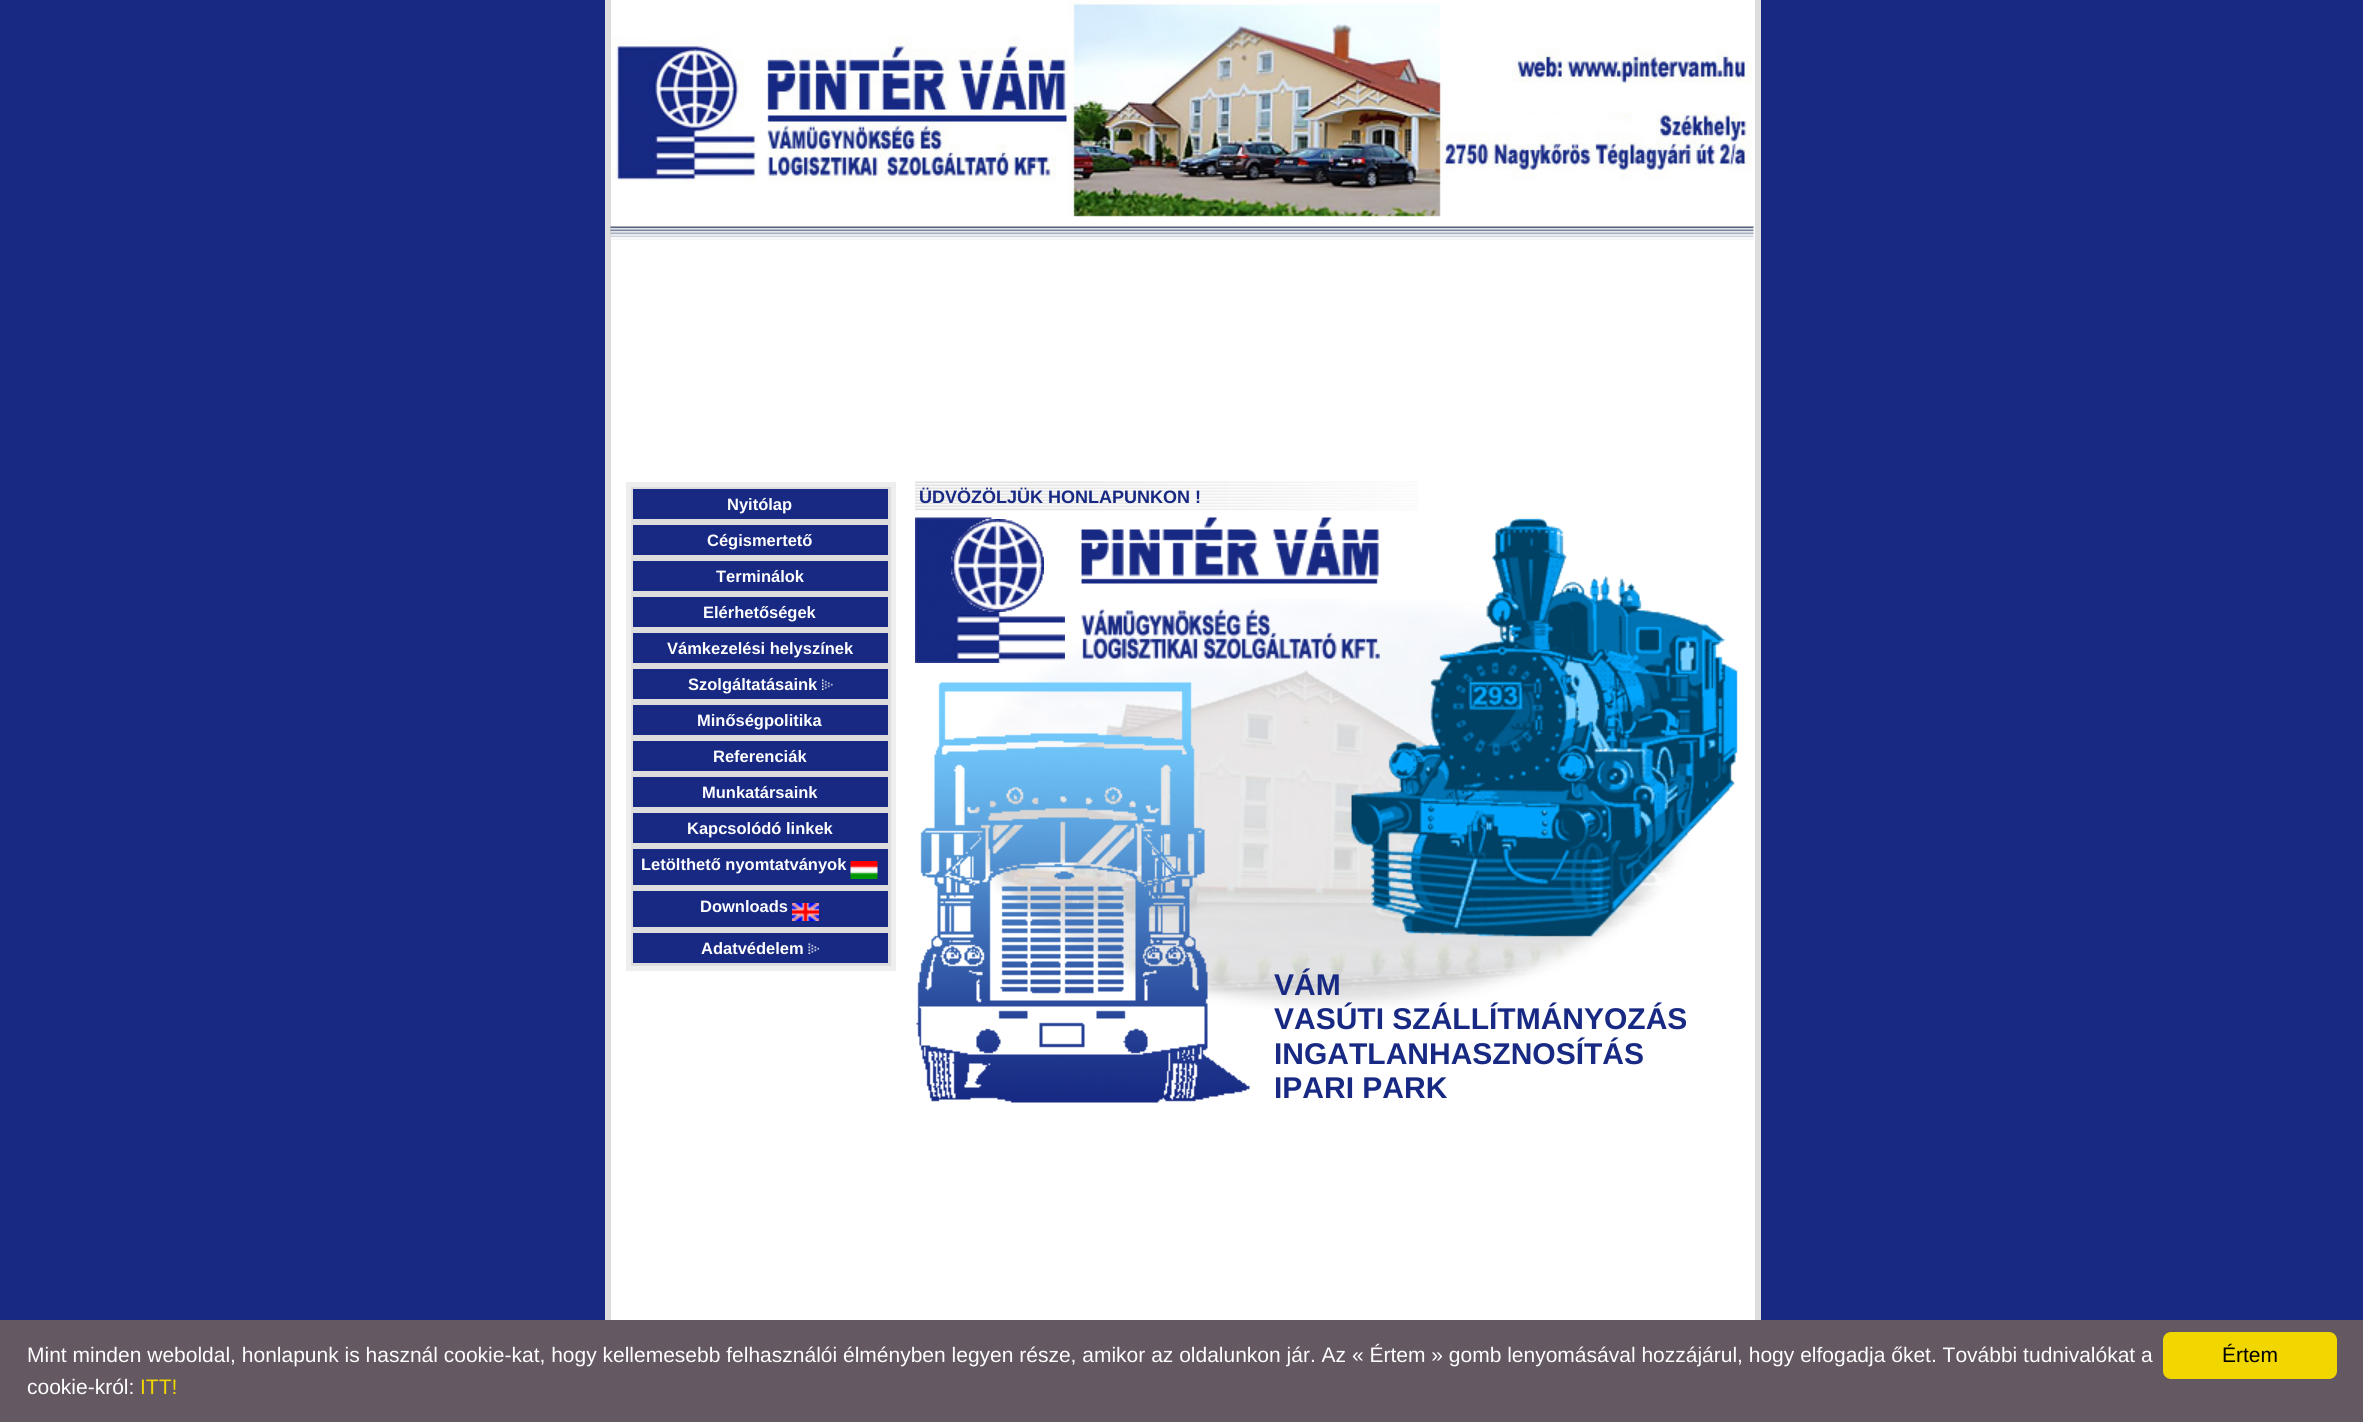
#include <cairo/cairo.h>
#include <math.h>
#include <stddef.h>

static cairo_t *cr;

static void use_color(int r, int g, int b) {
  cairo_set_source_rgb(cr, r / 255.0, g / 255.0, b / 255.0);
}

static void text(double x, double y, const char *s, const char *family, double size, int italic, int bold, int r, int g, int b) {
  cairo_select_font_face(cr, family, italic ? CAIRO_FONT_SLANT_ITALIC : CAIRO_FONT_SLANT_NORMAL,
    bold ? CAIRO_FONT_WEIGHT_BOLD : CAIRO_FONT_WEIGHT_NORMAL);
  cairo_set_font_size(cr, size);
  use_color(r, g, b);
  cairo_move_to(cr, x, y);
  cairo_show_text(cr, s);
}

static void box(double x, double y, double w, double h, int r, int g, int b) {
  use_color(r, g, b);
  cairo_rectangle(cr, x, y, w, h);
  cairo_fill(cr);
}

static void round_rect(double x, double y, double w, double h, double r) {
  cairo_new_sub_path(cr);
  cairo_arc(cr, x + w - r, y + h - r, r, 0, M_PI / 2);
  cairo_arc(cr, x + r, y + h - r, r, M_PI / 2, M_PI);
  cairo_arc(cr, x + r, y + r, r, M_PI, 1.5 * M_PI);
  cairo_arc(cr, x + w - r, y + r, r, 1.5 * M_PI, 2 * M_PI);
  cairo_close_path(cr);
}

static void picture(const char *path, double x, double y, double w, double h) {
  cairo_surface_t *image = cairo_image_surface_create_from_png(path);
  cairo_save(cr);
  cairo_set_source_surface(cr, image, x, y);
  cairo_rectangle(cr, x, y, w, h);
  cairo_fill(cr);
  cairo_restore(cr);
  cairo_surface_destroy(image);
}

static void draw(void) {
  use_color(23, 41, 131);
  cairo_paint(cr);
  box(611, 0, 1144, 1320, 255, 255, 255);
  box(1755, 0, 6, 1320, 221, 221, 221);
  box(605, 0, 6, 1320, 221, 221, 221);
  picture("img_01.png", 612, 0, 1140, 217);
  picture("img_02.png", 610, 226, 1144, 14);
  box(631, 487, 260, 479, 221, 221, 221);
  box(626, 482, 270, 5, 238, 238, 238);
  box(891, 482, 5, 489, 238, 238, 238);
  box(626, 966, 270, 5, 238, 238, 238);
  box(626, 482, 5, 489, 238, 238, 238);
  box(633, 489, 255, 30, 23, 41, 131);
  box(633, 525, 255, 30, 23, 41, 131);
  box(633, 561, 255, 30, 23, 41, 131);
  box(633, 597, 255, 30, 23, 41, 131);
  box(633, 633, 255, 30, 23, 41, 131);
  box(633, 669, 255, 30, 23, 41, 131);
  picture("img_03.png", 822, 679, 11, 11);
  box(633, 705, 255, 30, 23, 41, 131);
  box(633, 741, 255, 30, 23, 41, 131);
  box(633, 777, 255, 30, 23, 41, 131);
  box(633, 813, 255, 30, 23, 41, 131);
  box(633, 849, 255, 36, 23, 41, 131);
  picture("img_04.png", 850, 861, 28, 18);
  box(633, 891, 255, 36, 23, 41, 131);
  picture("img_05.png", 792, 903, 27, 18);
  box(633, 933, 255, 30, 23, 41, 131);
  picture("img_06.png", 808, 943, 11, 11);
  picture("img_07.png", 962, 599, 730, 410);
  picture("img_08.png", 915, 481, 504, 30);
  picture("img_09.png", 915, 517, 150, 146);
  picture("img_10.png", 1081, 517, 299, 142);
  picture("img_11.png", 1351, 518, 387, 419);
  picture("img_12.png", 951, 519, 93, 93);
  picture("img_13.png", 916, 682, 334, 421);
  box(0, 1320, 2363, 102, 100, 88, 98);
  use_color(241, 214, 0);
  round_rect(2163, 1332, 174, 47, 8);
  cairo_fill(cr);
  text(727, 510, "Nyitólap", "Liberation Sans", 16.5, 0, 1, 255, 255, 255);
  text(707, 546, "Cégismertető", "Liberation Sans", 16.5, 0, 1, 255, 255, 255);
  text(716, 582, "Terminálok", "Liberation Sans", 16.5, 0, 1, 255, 255, 255);
  text(703, 618, "Elérhetőségek", "Liberation Sans", 16.5, 0, 1, 255, 255, 255);
  text(667, 654, "Vámkezelési helyszínek", "Liberation Sans", 16.5, 0, 1, 255, 255, 255);
  text(688, 690, "Szolgáltatásaink", "Liberation Sans", 16.5, 0, 1, 255, 255, 255);
  text(697, 726, "Minőségpolitika", "Liberation Sans", 16.5, 0, 1, 255, 255, 255);
  text(713, 762, "Referenciák", "Liberation Sans", 16.5, 0, 1, 255, 255, 255);
  text(702, 798, "Munkatársaink", "Liberation Sans", 16.5, 0, 1, 255, 255, 255);
  text(687, 834, "Kapcsolódó linkek", "Liberation Sans", 16.5, 0, 1, 255, 255, 255);
  text(641, 870, "Letölthető nyomtatványok", "Liberation Sans", 16.5, 0, 1, 255, 255, 255);
  text(700, 912, "Downloads", "Liberation Sans", 16.5, 0, 1, 255, 255, 255);
  text(701, 954, "Adatvédelem", "Liberation Sans", 16.5, 0, 1, 255, 255, 255);
  text(919, 503, "ÜDVÖZÖLJÜK HONLAPUNKON !", "Liberation Sans", 18, 0, 1, 23, 41, 131);
  text(1274, 995, "VÁM", "Liberation Sans", 30, 0, 1, 23, 41, 131);
  text(1274, 1029, "VASÚTI SZÁLLÍTMÁNYOZÁS", "Liberation Sans", 30, 0, 1, 23, 41, 131);
  text(1274, 1064, "INGATLANHASZNOSÍTÁS", "Liberation Sans", 30, 0, 1, 23, 41, 131);
  text(1274, 1098, "IPARI PARK", "Liberation Sans", 30, 0, 1, 23, 41, 131);
  text(27, 1362, "Mint minden weboldal, honlapunk is használ cookie-kat, hogy kellemesebb felhasználói élményben legyen része, amikor az oldalunkon jár. Az « Értem » gomb lenyomásával hozzájárul, hogy elfogadja őket. További tudnivalókat a", "Liberation Sans", 21, 0, 0, 255, 255, 255);
  text(27, 1394, "cookie-król:", "Liberation Sans", 21, 0, 0, 255, 255, 255);
  text(140, 1394, "ITT!", "Liberation Sans", 21, 0, 0, 241, 214, 0);
  text(2222, 1362, "Értem", "Liberation Sans", 21, 0, 0, 0, 0, 0);
}

int main(void) {
  cairo_surface_t *surface = cairo_image_surface_create(CAIRO_FORMAT_RGB24, 2363, 1422);
  cr = cairo_create(surface);
  cairo_font_options_t *options = cairo_font_options_create();
  cairo_font_options_set_hint_metrics(options, CAIRO_HINT_METRICS_OFF);
  cairo_font_options_set_hint_style(options, CAIRO_HINT_STYLE_NONE);
  cairo_set_font_options(cr, options);
  cairo_set_miter_limit(cr, 4);
  draw();
  cairo_surface_write_to_png(surface, "out.png");
  cairo_font_options_destroy(options);
  cairo_destroy(cr);
  cairo_surface_destroy(surface);
  return 0;
}
